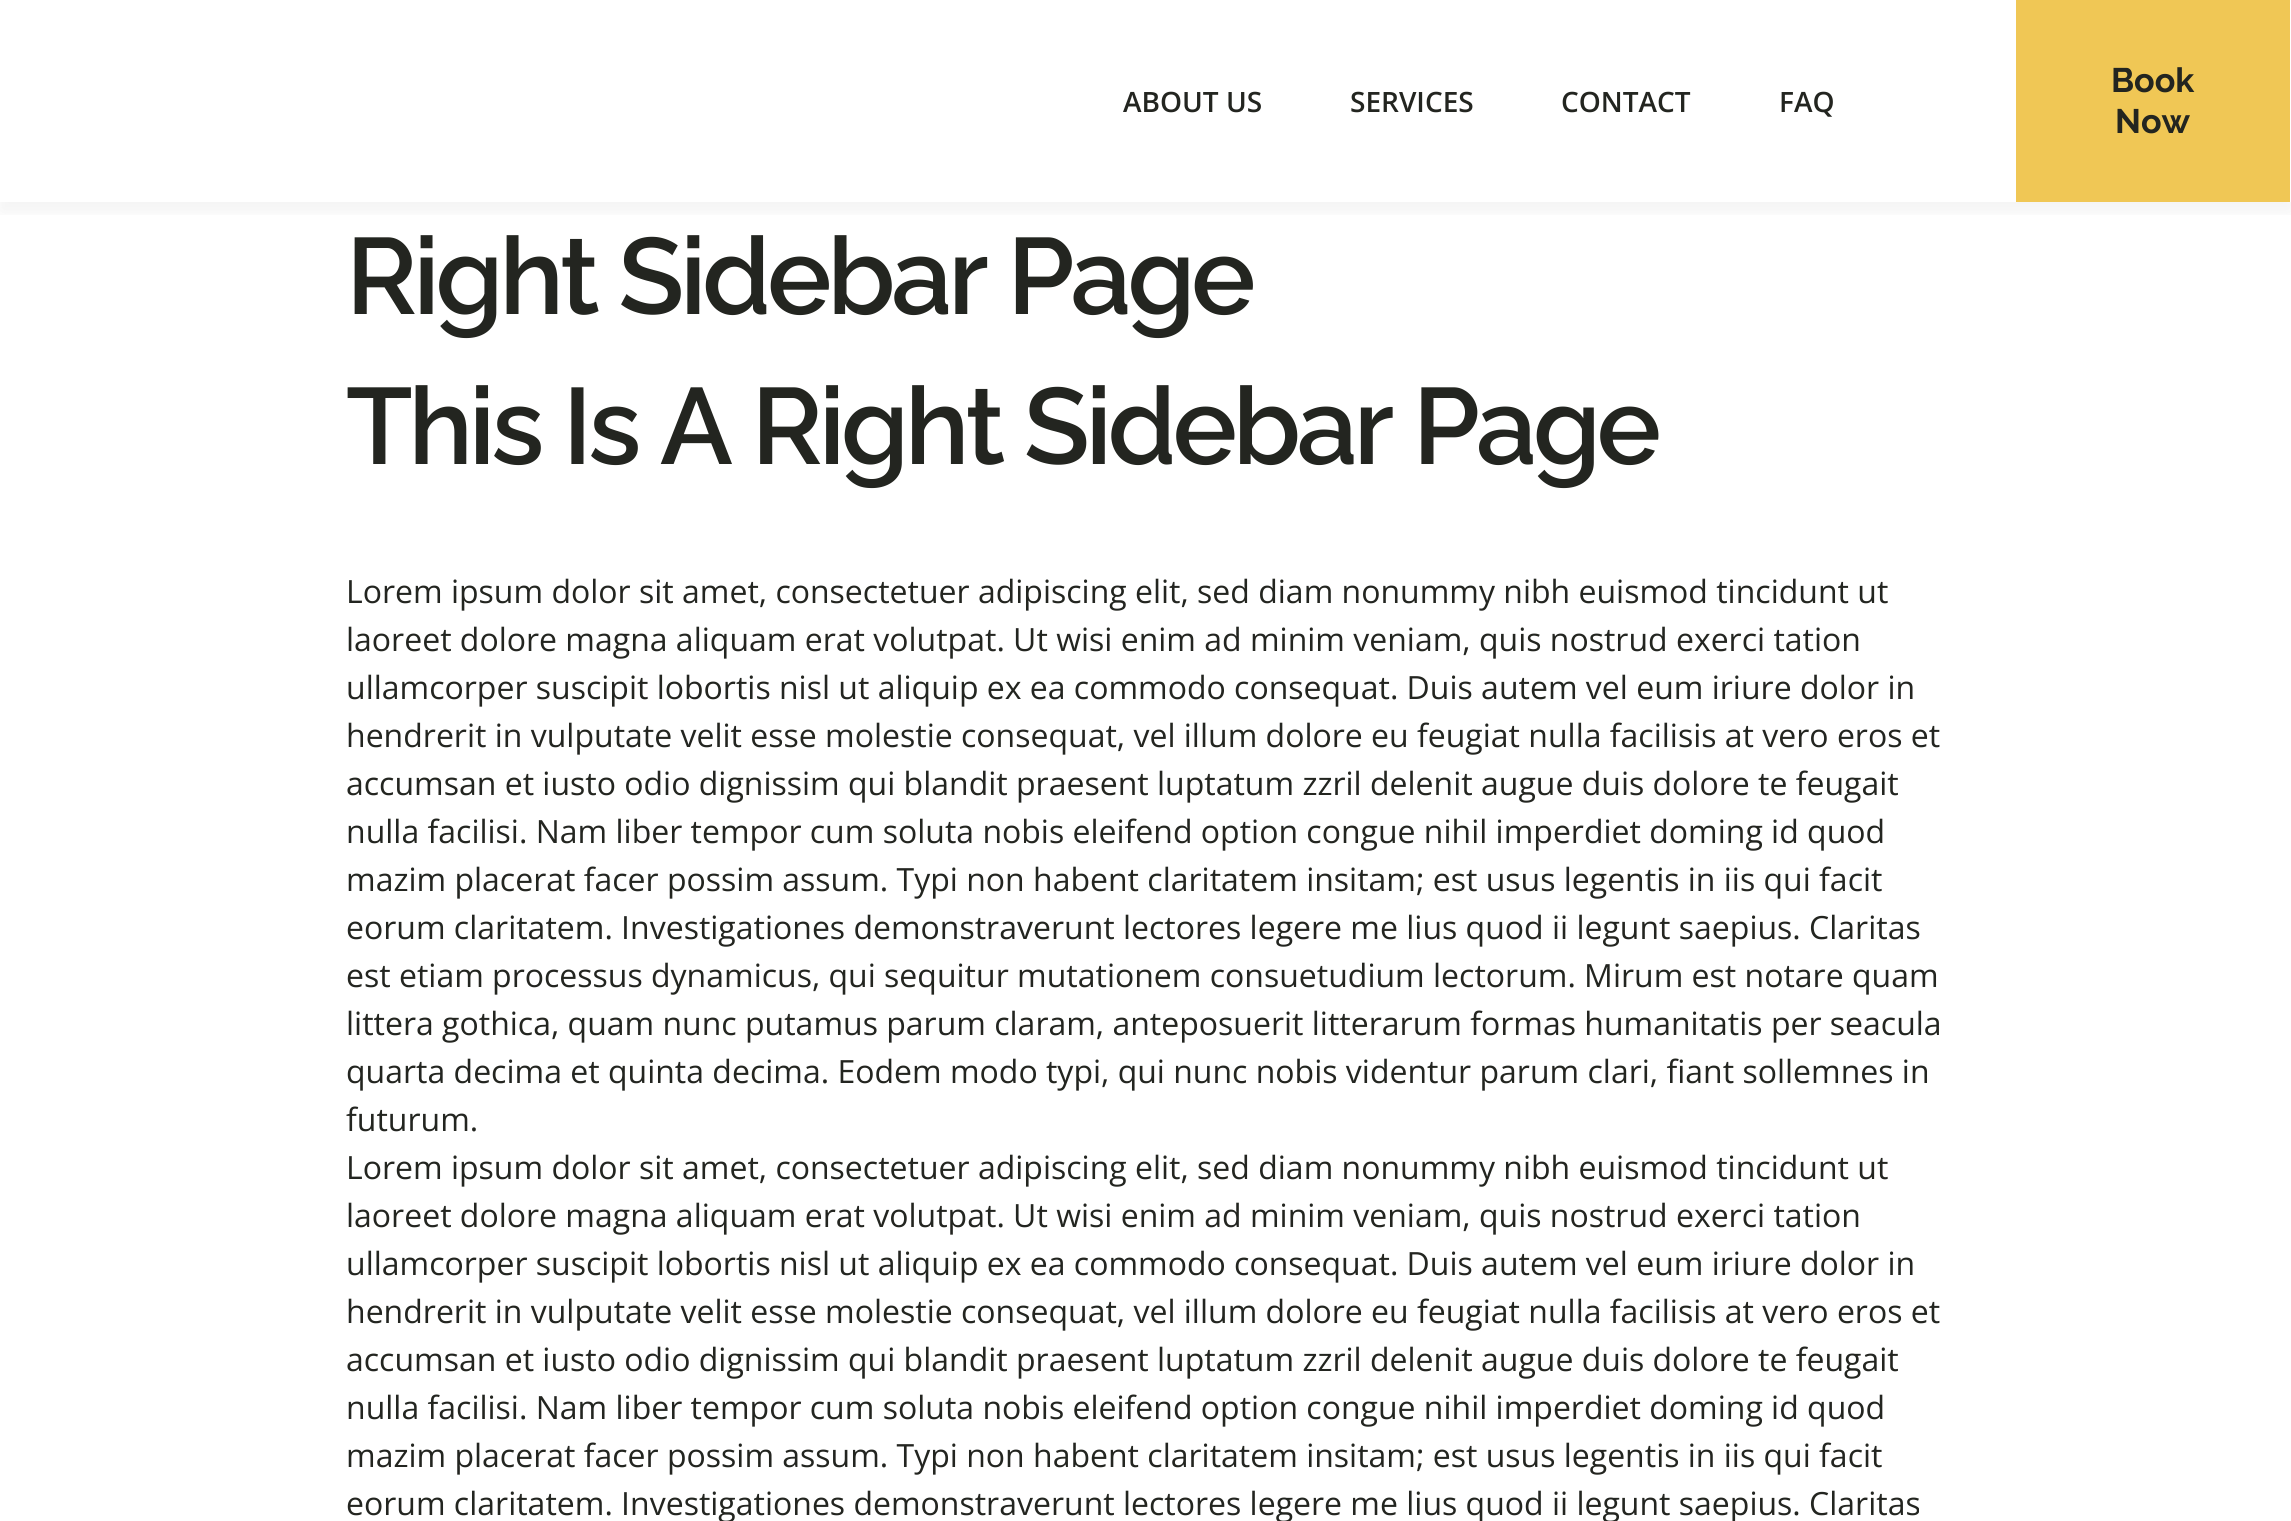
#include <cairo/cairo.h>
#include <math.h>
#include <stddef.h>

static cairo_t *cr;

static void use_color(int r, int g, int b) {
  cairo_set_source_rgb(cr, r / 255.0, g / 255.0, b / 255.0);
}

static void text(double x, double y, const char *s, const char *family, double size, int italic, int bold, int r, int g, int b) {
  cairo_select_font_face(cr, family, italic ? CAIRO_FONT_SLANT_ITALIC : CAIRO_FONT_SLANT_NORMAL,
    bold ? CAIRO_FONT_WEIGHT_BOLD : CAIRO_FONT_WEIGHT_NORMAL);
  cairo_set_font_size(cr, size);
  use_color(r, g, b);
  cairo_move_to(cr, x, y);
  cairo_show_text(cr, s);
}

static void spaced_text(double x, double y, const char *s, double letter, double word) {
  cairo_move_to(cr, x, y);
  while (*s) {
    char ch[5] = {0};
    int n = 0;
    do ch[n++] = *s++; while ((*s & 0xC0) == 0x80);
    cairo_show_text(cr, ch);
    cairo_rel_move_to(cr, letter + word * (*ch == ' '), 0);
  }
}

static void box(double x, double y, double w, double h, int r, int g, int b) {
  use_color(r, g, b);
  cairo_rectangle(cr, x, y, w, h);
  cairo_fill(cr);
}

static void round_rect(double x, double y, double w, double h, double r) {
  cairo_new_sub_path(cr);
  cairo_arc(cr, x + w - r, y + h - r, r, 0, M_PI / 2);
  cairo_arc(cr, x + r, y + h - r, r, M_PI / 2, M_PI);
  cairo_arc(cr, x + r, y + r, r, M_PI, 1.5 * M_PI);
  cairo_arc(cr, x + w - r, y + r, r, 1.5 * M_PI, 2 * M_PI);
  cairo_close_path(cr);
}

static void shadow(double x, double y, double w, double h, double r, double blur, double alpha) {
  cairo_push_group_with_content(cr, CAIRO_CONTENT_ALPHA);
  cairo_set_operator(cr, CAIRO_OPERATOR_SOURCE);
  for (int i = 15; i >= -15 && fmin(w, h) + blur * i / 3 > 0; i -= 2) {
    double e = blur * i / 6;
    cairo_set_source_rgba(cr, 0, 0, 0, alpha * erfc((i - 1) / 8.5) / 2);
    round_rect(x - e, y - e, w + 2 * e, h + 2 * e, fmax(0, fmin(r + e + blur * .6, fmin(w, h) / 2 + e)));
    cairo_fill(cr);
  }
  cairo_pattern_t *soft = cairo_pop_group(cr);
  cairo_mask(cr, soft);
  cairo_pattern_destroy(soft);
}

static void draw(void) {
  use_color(255, 255, 255);
  cairo_paint(cr);
  cairo_save(cr);
  cairo_rectangle(cr, 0, 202, 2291, 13);
  cairo_clip(cr);
  use_color(0, 0, 0);
  shadow(0, 10, 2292, 202, 0, 10, 0.05);
  cairo_restore(cr);
  box(2016, 0, 274, 202, 240, 199, 85);
  text(1123, 112, "ABOUT US", "Open Sans SemiBold", 28, 0, 0, 35, 37, 32);
  text(1350, 112, "SERVICES", "Open Sans SemiBold", 28, 0, 0, 35, 37, 32);
  text(1561, 112, "CONTACT", "Open Sans SemiBold", 28, 0, 0, 35, 37, 32);
  text(1779, 112, "FAQ", "Open Sans SemiBold", 28, 0, 0, 35, 37, 32);
  text(2111, 92, "Book", "Raleway", 34, 0, 1, 35, 37, 32);
  text(2115, 133, "Now", "Raleway", 34, 0, 1, 35, 37, 32);
  cairo_select_font_face(cr, "Raleway SemiBold", CAIRO_FONT_SLANT_NORMAL, CAIRO_FONT_WEIGHT_NORMAL);
  cairo_set_font_size(cr, 108);
  spaced_text(346, 314, "Right Sidebar Page", -4, 0);
  spaced_text(346, 464, "This Is A Right Sidebar Page", -4, 0);
  text(346, 603, "Lorem ipsum dolor sit amet, consectetuer adipiscing elit, sed diam nonummy nibh euismod tincidunt ut", "Open Sans", 32, 0, 0, 35, 37, 32);
  text(346, 651, "laoreet dolore magna aliquam erat volutpat. Ut wisi enim ad minim veniam, quis nostrud exerci tation", "Open Sans", 32, 0, 0, 35, 37, 32);
  text(346, 699, "ullamcorper suscipit lobortis nisl ut aliquip ex ea commodo consequat. Duis autem vel eum iriure dolor in", "Open Sans", 32, 0, 0, 35, 37, 32);
  text(346, 747, "hendrerit in vulputate velit esse molestie consequat, vel illum dolore eu feugiat nulla facilisis at vero eros et", "Open Sans", 32, 0, 0, 35, 37, 32);
  text(346, 795, "accumsan et iusto odio dignissim qui blandit praesent luptatum zzril delenit augue duis dolore te feugait", "Open Sans", 32, 0, 0, 35, 37, 32);
  text(346, 843, "nulla facilisi. Nam liber tempor cum soluta nobis eleifend option congue nihil imperdiet doming id quod", "Open Sans", 32, 0, 0, 35, 37, 32);
  text(346, 891, "mazim placerat facer possim assum. Typi non habent claritatem insitam; est usus legentis in iis qui facit", "Open Sans", 32, 0, 0, 35, 37, 32);
  text(346, 939, "eorum claritatem. Investigationes demonstraverunt lectores legere me lius quod ii legunt saepius. Claritas", "Open Sans", 32, 0, 0, 35, 37, 32);
  text(346, 987, "est etiam processus dynamicus, qui sequitur mutationem consuetudium lectorum. Mirum est notare quam", "Open Sans", 32, 0, 0, 35, 37, 32);
  text(346, 1035, "littera gothica, quam nunc putamus parum claram, anteposuerit litterarum formas humanitatis per seacula", "Open Sans", 32, 0, 0, 35, 37, 32);
  text(346, 1083, "quarta decima et quinta decima. Eodem modo typi, qui nunc nobis videntur parum clari, fiant sollemnes in", "Open Sans", 32, 0, 0, 35, 37, 32);
  text(346, 1131, "futurum.", "Open Sans", 32, 0, 0, 35, 37, 32);
  text(346, 1179, "Lorem ipsum dolor sit amet, consectetuer adipiscing elit, sed diam nonummy nibh euismod tincidunt ut", "Open Sans", 32, 0, 0, 35, 37, 32);
  text(346, 1227, "laoreet dolore magna aliquam erat volutpat. Ut wisi enim ad minim veniam, quis nostrud exerci tation", "Open Sans", 32, 0, 0, 35, 37, 32);
  text(346, 1275, "ullamcorper suscipit lobortis nisl ut aliquip ex ea commodo consequat. Duis autem vel eum iriure dolor in", "Open Sans", 32, 0, 0, 35, 37, 32);
  text(346, 1323, "hendrerit in vulputate velit esse molestie consequat, vel illum dolore eu feugiat nulla facilisis at vero eros et", "Open Sans", 32, 0, 0, 35, 37, 32);
  text(346, 1371, "accumsan et iusto odio dignissim qui blandit praesent luptatum zzril delenit augue duis dolore te feugait", "Open Sans", 32, 0, 0, 35, 37, 32);
  text(346, 1419, "nulla facilisi. Nam liber tempor cum soluta nobis eleifend option congue nihil imperdiet doming id quod", "Open Sans", 32, 0, 0, 35, 37, 32);
  text(346, 1467, "mazim placerat facer possim assum. Typi non habent claritatem insitam; est usus legentis in iis qui facit", "Open Sans", 32, 0, 0, 35, 37, 32);
  text(346, 1515, "eorum claritatem. Investigationes demonstraverunt lectores legere me lius quod ii legunt saepius. Claritas", "Open Sans", 32, 0, 0, 35, 37, 32);
}

int main(void) {
  cairo_surface_t *surface = cairo_image_surface_create(CAIRO_FORMAT_RGB24, 2291, 1521);
  cr = cairo_create(surface);
  cairo_font_options_t *options = cairo_font_options_create();
  cairo_font_options_set_hint_metrics(options, CAIRO_HINT_METRICS_OFF);
  cairo_font_options_set_hint_style(options, CAIRO_HINT_STYLE_NONE);
  cairo_set_font_options(cr, options);
  cairo_set_miter_limit(cr, 4);
  draw();
  cairo_surface_write_to_png(surface, "out.png");
  cairo_font_options_destroy(options);
  cairo_destroy(cr);
  cairo_surface_destroy(surface);
  return 0;
}
